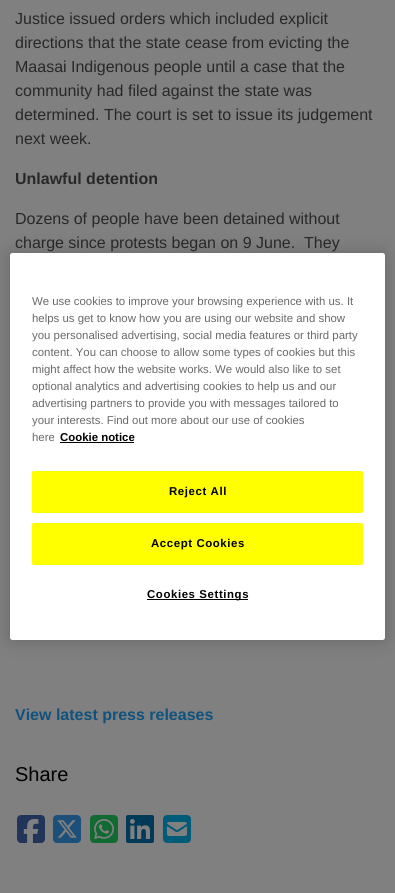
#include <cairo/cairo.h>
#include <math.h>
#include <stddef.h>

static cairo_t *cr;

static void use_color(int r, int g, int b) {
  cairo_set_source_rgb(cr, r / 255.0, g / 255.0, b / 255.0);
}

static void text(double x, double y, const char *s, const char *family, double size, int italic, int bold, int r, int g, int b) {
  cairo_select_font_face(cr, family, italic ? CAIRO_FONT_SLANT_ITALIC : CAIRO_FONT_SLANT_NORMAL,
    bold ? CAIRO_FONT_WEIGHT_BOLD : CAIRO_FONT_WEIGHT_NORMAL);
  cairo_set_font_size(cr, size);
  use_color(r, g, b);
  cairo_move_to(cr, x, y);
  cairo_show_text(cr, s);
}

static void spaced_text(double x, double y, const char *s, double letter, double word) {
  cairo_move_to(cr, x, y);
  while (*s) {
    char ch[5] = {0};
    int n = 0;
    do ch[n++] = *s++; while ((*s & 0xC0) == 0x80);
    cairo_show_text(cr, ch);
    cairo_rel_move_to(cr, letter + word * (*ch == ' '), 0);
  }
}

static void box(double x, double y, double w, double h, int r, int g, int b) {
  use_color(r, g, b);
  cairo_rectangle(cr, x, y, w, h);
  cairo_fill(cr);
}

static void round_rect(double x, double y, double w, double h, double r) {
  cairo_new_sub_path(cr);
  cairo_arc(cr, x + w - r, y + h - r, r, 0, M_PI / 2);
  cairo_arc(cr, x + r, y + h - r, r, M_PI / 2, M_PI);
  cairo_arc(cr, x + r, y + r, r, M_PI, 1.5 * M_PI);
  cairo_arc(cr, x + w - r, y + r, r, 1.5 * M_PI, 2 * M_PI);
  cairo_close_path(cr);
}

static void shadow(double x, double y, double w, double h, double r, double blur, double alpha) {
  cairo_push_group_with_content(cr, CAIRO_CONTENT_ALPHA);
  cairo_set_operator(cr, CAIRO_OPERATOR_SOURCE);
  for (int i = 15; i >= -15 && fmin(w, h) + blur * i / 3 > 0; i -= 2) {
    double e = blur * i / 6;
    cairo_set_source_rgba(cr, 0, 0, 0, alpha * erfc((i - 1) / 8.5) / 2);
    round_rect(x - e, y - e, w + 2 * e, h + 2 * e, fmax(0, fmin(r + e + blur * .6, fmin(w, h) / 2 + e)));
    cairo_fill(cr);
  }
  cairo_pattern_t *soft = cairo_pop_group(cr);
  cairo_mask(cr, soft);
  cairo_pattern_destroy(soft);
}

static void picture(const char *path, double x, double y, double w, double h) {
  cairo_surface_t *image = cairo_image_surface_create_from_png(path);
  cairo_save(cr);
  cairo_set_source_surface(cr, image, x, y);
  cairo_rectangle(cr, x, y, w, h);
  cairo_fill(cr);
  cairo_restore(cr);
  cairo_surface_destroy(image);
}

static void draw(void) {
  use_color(128, 128, 128);
  cairo_paint(cr);
  picture("img_01.png", 17, 815, 28, 28);
  picture("img_02.png", 53, 815, 28, 28);
  picture("img_03.png", 90, 815, 28, 28);
  picture("img_04.png", 126, 815, 28, 28);
  picture("img_05.png", 163, 815, 28, 28);
  use_color(0, 0, 0);
  shadow(10, 253, 375, 387, 2.5, 9, 0.2);
  use_color(255, 255, 255);
  round_rect(10, 253, 375, 387, 2.5);
  cairo_fill(cr);
  box(60, 442, 74, 1, 0, 0, 0);
  use_color(255, 255, 0);
  round_rect(32.5, 471.5, 330, 41, 1.5);
  cairo_fill_preserve(cr);
  cairo_set_line_width(cr, 1);
  cairo_stroke(cr);
  round_rect(32.5, 523.5, 330, 41, 1.5);
  cairo_fill_preserve(cr);
  cairo_stroke(cr);
  box(147, 599, 101, 1, 0, 0, 0);
  text(15, 24, "Justice issued orders which included explicit", "Liberation Sans", 16, 0, 0, 40, 40, 40);
  text(15, 48, "directions that the state cease from evicting the", "Liberation Sans", 16, 0, 0, 40, 40, 40);
  text(15, 72, "Maasai Indigenous people until a case that the", "Liberation Sans", 16, 0, 0, 40, 40, 40);
  text(15, 96, "community had filed against the state was", "Liberation Sans", 16, 0, 0, 40, 40, 40);
  text(15, 120, "determined. The court is set to issue its judgement", "Liberation Sans", 16, 0, 0, 40, 40, 40);
  text(15, 144, "next week.", "Liberation Sans", 16, 0, 0, 40, 40, 40);
  text(15, 184, "Unlawful detention", "Liberation Sans", 16, 0, 1, 40, 40, 40);
  text(15, 224, "Dozens of people have been detained without", "Liberation Sans", 16, 0, 0, 40, 40, 40);
  text(15, 248, "charge since protests began on 9 June.  They", "Liberation Sans", 16, 0, 0, 40, 40, 40);
  text(15, 720, "View latest press releases", "Liberation Sans", 16, 0, 1, 15, 82, 125);
  text(15, 781, "Share", "Liberation Sans", 20, 0, 0, 0, 0, 0);
  text(32, 305, "We use cookies to improve your browsing experience with us. It", "Liberation Sans", 11.4, 0, 0, 105, 105, 105);
  text(32, 322, "helps us get to know how you are using our website and show", "Liberation Sans", 11.4, 0, 0, 105, 105, 105);
  text(32, 339, "you personalised advertising, social media features or third party", "Liberation Sans", 11.4, 0, 0, 105, 105, 105);
  text(32, 356, "content. You can choose to allow some types of cookies but this", "Liberation Sans", 11.4, 0, 0, 105, 105, 105);
  text(32, 373, "might affect how the website works. We would also like to set", "Liberation Sans", 11.4, 0, 0, 105, 105, 105);
  text(32, 390, "optional analytics and advertising cookies to help us and our", "Liberation Sans", 11.4, 0, 0, 105, 105, 105);
  text(32, 407, "advertising partners to provide you with messages tailored to", "Liberation Sans", 11.4, 0, 0, 105, 105, 105);
  text(32, 424, "your interests. Find out more about our use of cookies", "Liberation Sans", 11.4, 0, 0, 105, 105, 105);
  text(32, 441, "here", "Liberation Sans", 11.4, 0, 0, 105, 105, 105);
  text(60, 441, "Cookie notice", "Liberation Sans", 11.4, 0, 1, 0, 0, 0);
  spaced_text(169, 495, "Reject All", 0.6, 0);
  spaced_text(151, 547, "Accept Cookies", 0.6, 0);
  spaced_text(147, 598, "Cookies Settings", 0.6, 0);
}

int main(void) {
  cairo_surface_t *surface = cairo_image_surface_create(CAIRO_FORMAT_RGB24, 395, 893);
  cr = cairo_create(surface);
  cairo_font_options_t *options = cairo_font_options_create();
  cairo_font_options_set_hint_metrics(options, CAIRO_HINT_METRICS_OFF);
  cairo_font_options_set_hint_style(options, CAIRO_HINT_STYLE_NONE);
  cairo_set_font_options(cr, options);
  cairo_set_miter_limit(cr, 4);
  draw();
  cairo_surface_write_to_png(surface, "out.png");
  cairo_font_options_destroy(options);
  cairo_destroy(cr);
  cairo_surface_destroy(surface);
  return 0;
}
